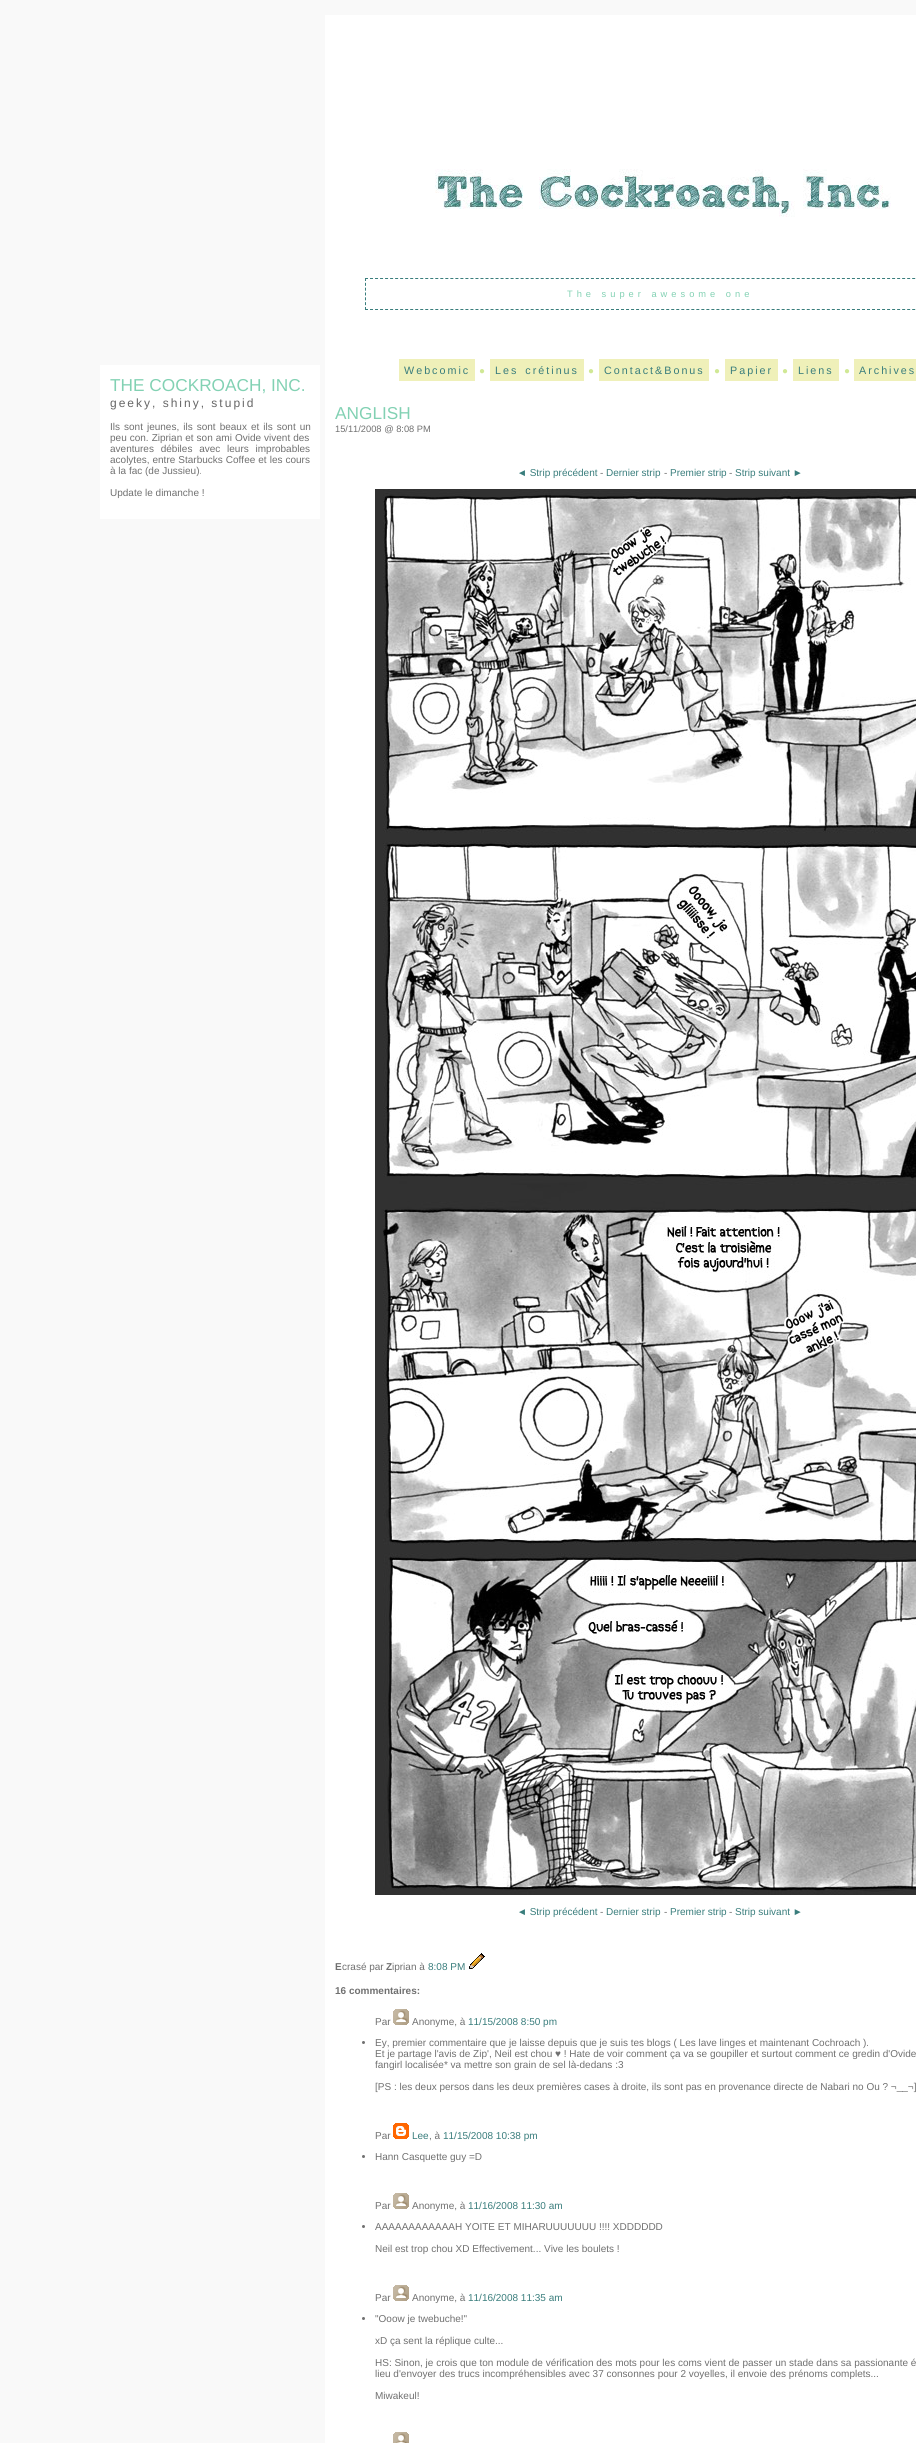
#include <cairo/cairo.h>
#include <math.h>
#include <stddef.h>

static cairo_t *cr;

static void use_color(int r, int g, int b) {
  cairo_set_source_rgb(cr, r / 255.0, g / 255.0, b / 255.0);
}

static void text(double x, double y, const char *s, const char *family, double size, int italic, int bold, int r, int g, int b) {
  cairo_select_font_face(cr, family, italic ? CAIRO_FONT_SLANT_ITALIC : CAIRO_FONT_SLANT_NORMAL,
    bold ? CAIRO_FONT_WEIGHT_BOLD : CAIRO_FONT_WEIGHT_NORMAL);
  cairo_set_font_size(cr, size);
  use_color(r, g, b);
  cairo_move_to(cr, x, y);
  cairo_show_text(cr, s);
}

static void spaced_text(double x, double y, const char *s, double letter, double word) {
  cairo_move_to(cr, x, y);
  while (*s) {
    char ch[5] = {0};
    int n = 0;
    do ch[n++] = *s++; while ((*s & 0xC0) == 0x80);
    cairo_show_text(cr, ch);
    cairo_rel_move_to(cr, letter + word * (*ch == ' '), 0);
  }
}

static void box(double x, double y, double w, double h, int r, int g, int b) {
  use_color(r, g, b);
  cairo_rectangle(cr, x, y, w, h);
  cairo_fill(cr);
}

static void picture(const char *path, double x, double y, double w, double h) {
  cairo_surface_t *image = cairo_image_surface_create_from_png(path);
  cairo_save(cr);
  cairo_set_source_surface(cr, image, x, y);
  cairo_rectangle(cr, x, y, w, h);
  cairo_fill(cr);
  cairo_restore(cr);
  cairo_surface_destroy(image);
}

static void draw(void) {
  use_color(249, 249, 249);
  cairo_paint(cr);
  box(100, 365, 220, 154, 255, 255, 255);
  box(325, 15, 591, 2428, 255, 255, 255);
  picture("img_01.png", 435, 169, 456, 48);
  cairo_new_path(cr);
  cairo_move_to(cr, 365, 278.5);
  cairo_line_to(cr, 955, 278.5);
  use_color(57, 125, 124);
  cairo_set_line_width(cr, 1);
  cairo_set_dash(cr, (double[]){3, 2.02}, 2, 0);
  cairo_stroke(cr);
  cairo_new_path(cr);
  cairo_move_to(cr, 365, 309.5);
  cairo_line_to(cr, 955, 309.5);
  cairo_stroke(cr);
  cairo_new_path(cr);
  cairo_move_to(cr, 365.5, 278);
  cairo_line_to(cr, 365.5, 310);
  cairo_set_dash(cr, (double[]){3, 1.83}, 2, 0);
  cairo_stroke(cr);
  box(399, 359, 76, 22, 239, 240, 185);
  box(490, 359, 94, 22, 239, 240, 185);
  box(599, 359, 110, 22, 239, 240, 185);
  box(725, 359, 53, 22, 239, 240, 185);
  box(793, 359, 46, 22, 239, 240, 185);
  box(854, 359, 62, 22, 239, 240, 185);
  picture("img_02.png", 375, 489, 541, 1406);
  picture("img_03.png", 469, 1953, 16, 16);
  picture("img_04.png", 393, 2009, 16, 16);
  use_color(112, 112, 112);
  cairo_arc(cr, 363.5, 2042.5, 1.5, 0, 2 * M_PI);
  cairo_fill(cr);
  picture("img_05.png", 393, 2123, 16, 16);
  cairo_arc(cr, 363.5, 2156.5, 1.5, 0, 2 * M_PI);
  cairo_fill(cr);
  picture("img_04.png", 393, 2193, 16, 16);
  cairo_arc(cr, 363.5, 2226.5, 1.5, 0, 2 * M_PI);
  cairo_fill(cr);
  picture("img_04.png", 393, 2285, 16, 16);
  cairo_arc(cr, 363.5, 2318.5, 1.5, 0, 2 * M_PI);
  cairo_fill(cr);
  picture("img_06.png", 393, 2432, 16, 11);
  text(110, 391, "THE COCKROACH, INC.", "Liberation Sans", 17.25, 0, 0, 130, 209, 179);
  cairo_set_font_size(cr, 12);
  use_color(102, 102, 102);
  spaced_text(110, 407, "geeky, shiny, stupid", 2, 0);
  cairo_set_font_size(cr, 10);
  use_color(112, 112, 112);
  spaced_text(110, 430, "Ils sont jeunes, ils sont beaux et ils sont un", 0, 1.25);
  spaced_text(110, 441, "peu con. Ziprian et son ami Ovide vivent des", 0, 0.25);
  spaced_text(110, 452, "aventures débiles avec leurs improbables", 0, 4);
  spaced_text(110, 463, "acolytes, entre Starbucks Coffee et les cours", 0, 0.25);
  text(110, 474, "à la fac (de Jussieu).", "Liberation Sans", 10, 0, 0, 112, 112, 112);
  text(110, 496, "Update le dimanche !", "Liberation Sans", 10, 0, 0, 112, 112, 112);
  cairo_set_font_size(cr, 9.3);
  use_color(130, 209, 179);
  spaced_text(567, 297, "The super awesome one", 4, 0);
  cairo_set_font_size(cr, 10.75);
  use_color(57, 125, 124);
  spaced_text(404, 374, "Webcomic", 2, 0);
  text(479, 374, "●", "Liberation Sans", 10, 0, 0, 208, 232, 149);
  cairo_set_font_size(cr, 10.75);
  use_color(57, 125, 124);
  spaced_text(495, 374, "Les crétinus", 2, 2);
  text(588, 374, "●", "Liberation Sans", 10, 0, 0, 208, 232, 149);
  cairo_set_font_size(cr, 10.75);
  use_color(57, 125, 124);
  spaced_text(604, 374, "Contact&Bonus", 2, 0);
  text(714, 374, "●", "Liberation Sans", 10, 0, 0, 208, 232, 149);
  cairo_set_font_size(cr, 10.75);
  use_color(57, 125, 124);
  spaced_text(730, 374, "Papier", 2, 0);
  text(782, 374, "●", "Liberation Sans", 10, 0, 0, 208, 232, 149);
  cairo_set_font_size(cr, 10.75);
  use_color(57, 125, 124);
  spaced_text(798, 374, "Liens", 2, 0);
  text(844, 374, "●", "Liberation Sans", 10, 0, 0, 208, 232, 149);
  cairo_set_font_size(cr, 10.75);
  use_color(57, 125, 124);
  spaced_text(859, 374, "Archives", 2, 0);
  text(335, 419, "ANGLISH", "Liberation Sans", 17.25, 0, 0, 130, 209, 179);
  text(335, 432, "15/11/2008 @ 8:08 PM", "Liberation Sans", 9.3, 0, 0, 112, 112, 112);
  text(517, 476, "◄ Strip précédent", "Liberation Sans", 10, 0, 0, 57, 125, 124);
  text(600, 476, "-", "Liberation Sans", 10, 0, 0, 112, 112, 112);
  text(606, 476, "Dernier strip", "Liberation Sans", 10, 0, 0, 57, 125, 124);
  text(664, 476, "-", "Liberation Sans", 10, 0, 0, 112, 112, 112);
  text(670, 476, "Premier strip", "Liberation Sans", 10, 0, 0, 57, 125, 124);
  text(729, 476, "-", "Liberation Sans", 10, 0, 0, 112, 112, 112);
  text(735, 476, "Strip suivant ►", "Liberation Sans", 10, 0, 0, 57, 125, 124);
  text(517, 1915, "◄ Strip précédent", "Liberation Sans", 10, 0, 0, 57, 125, 124);
  text(600, 1915, "-", "Liberation Sans", 10, 0, 0, 112, 112, 112);
  text(606, 1915, "Dernier strip", "Liberation Sans", 10, 0, 0, 57, 125, 124);
  text(664, 1915, "-", "Liberation Sans", 10, 0, 0, 112, 112, 112);
  text(670, 1915, "Premier strip", "Liberation Sans", 10, 0, 0, 57, 125, 124);
  text(729, 1915, "-", "Liberation Sans", 10, 0, 0, 112, 112, 112);
  text(735, 1915, "Strip suivant ►", "Liberation Sans", 10, 0, 0, 57, 125, 124);
  text(335, 1970, "E", "Liberation Sans", 10, 0, 1, 112, 112, 112);
  text(342, 1970, "crasé par", "Liberation Sans", 10, 0, 0, 112, 112, 112);
  text(386, 1970, "Z", "Liberation Sans", 10, 0, 1, 112, 112, 112);
  text(392, 1970, "iprian à", "Liberation Sans", 10, 0, 0, 112, 112, 112);
  text(428, 1970, "8:08 PM", "Liberation Sans", 10, 0, 0, 57, 125, 124);
  text(335, 1994, "16 commentaires:", "Liberation Sans", 10, 0, 1, 112, 112, 112);
  text(375, 2025, "Par", "Liberation Sans", 10, 0, 0, 112, 112, 112);
  text(412, 2025, "Anonyme, à", "Liberation Sans", 10, 0, 0, 112, 112, 112);
  text(468, 2025, "11/15/2008 8:50 pm", "Liberation Sans", 10, 0, 0, 57, 125, 124);
  text(375, 2046, "Ey, premier commentaire que je laisse depuis que je suis tes blogs ( Les lave linges et maintenant Cochroach ).", "Liberation Sans", 10, 0, 0, 112, 112, 112);
  text(375, 2057, "Et je partage l'avis de Zip', Neil est chou ♥ ! Hate de voir comment ça va se goupiller et surtout comment ce gredin d'Ovide", "Liberation Sans", 10, 0, 0, 112, 112, 112);
  text(375, 2068, "fangirl localisée* va mettre son grain de sel là-dedans :3", "Liberation Sans", 10, 0, 0, 112, 112, 112);
  text(375, 2090, "[PS : les deux persos dans les deux premières cases à droite, ils sont pas en provenance directe de Nabari no Ou ? ¬__¬]", "Liberation Sans", 10, 0, 0, 112, 112, 112);
  text(375, 2139, "Par", "Liberation Sans", 10, 0, 0, 112, 112, 112);
  text(412, 2139, "Lee", "Liberation Sans", 10, 0, 0, 57, 125, 124);
  text(429, 2139, ", à", "Liberation Sans", 10, 0, 0, 112, 112, 112);
  text(443, 2139, "11/15/2008 10:38 pm", "Liberation Sans", 10, 0, 0, 57, 125, 124);
  text(375, 2160, "Hann Casquette guy =D", "Liberation Sans", 10, 0, 0, 112, 112, 112);
  text(375, 2209, "Par", "Liberation Sans", 10, 0, 0, 112, 112, 112);
  text(412, 2209, "Anonyme, à", "Liberation Sans", 10, 0, 0, 112, 112, 112);
  text(468, 2209, "11/16/2008 11:30 am", "Liberation Sans", 10, 0, 0, 57, 125, 124);
  text(375, 2230, "AAAAAAAAAAAAH YOITE ET MIHARUUUUUUU !!!! XDDDDDD", "Liberation Sans", 10, 0, 0, 112, 112, 112);
  text(375, 2252, "Neil est trop chou XD Effectivement... Vive les boulets !", "Liberation Sans", 10, 0, 0, 112, 112, 112);
  text(375, 2301, "Par", "Liberation Sans", 10, 0, 0, 112, 112, 112);
  text(412, 2301, "Anonyme, à", "Liberation Sans", 10, 0, 0, 112, 112, 112);
  text(468, 2301, "11/16/2008 11:35 am", "Liberation Sans", 10, 0, 0, 57, 125, 124);
  text(375, 2322, "\"Ooow je twebuche!\"", "Liberation Sans", 10, 0, 0, 112, 112, 112);
  text(375, 2344, "xD ça sent la réplique culte...", "Liberation Sans", 10, 0, 0, 112, 112, 112);
  text(375, 2366, "HS: Sinon, je crois que ton module de vérification des mots pour les coms vient de passer un stade dans sa passionante é", "Liberation Sans", 10, 0, 0, 112, 112, 112);
  text(375, 2377, "lieu d'envoyer des trucs incompréhensibles avec 37 consonnes pour 2 voyelles, il envoie des prénoms complets...", "Liberation Sans", 10, 0, 0, 112, 112, 112);
  text(375, 2399, "Miwakeul!", "Liberation Sans", 10, 0, 0, 112, 112, 112);
}

int main(void) {
  cairo_surface_t *surface = cairo_image_surface_create(CAIRO_FORMAT_RGB24, 916, 2443);
  cr = cairo_create(surface);
  cairo_font_options_t *options = cairo_font_options_create();
  cairo_font_options_set_hint_metrics(options, CAIRO_HINT_METRICS_OFF);
  cairo_font_options_set_hint_style(options, CAIRO_HINT_STYLE_NONE);
  cairo_set_font_options(cr, options);
  cairo_set_miter_limit(cr, 4);
  draw();
  cairo_surface_write_to_png(surface, "out.png");
  cairo_font_options_destroy(options);
  cairo_destroy(cr);
  cairo_surface_destroy(surface);
  return 0;
}
